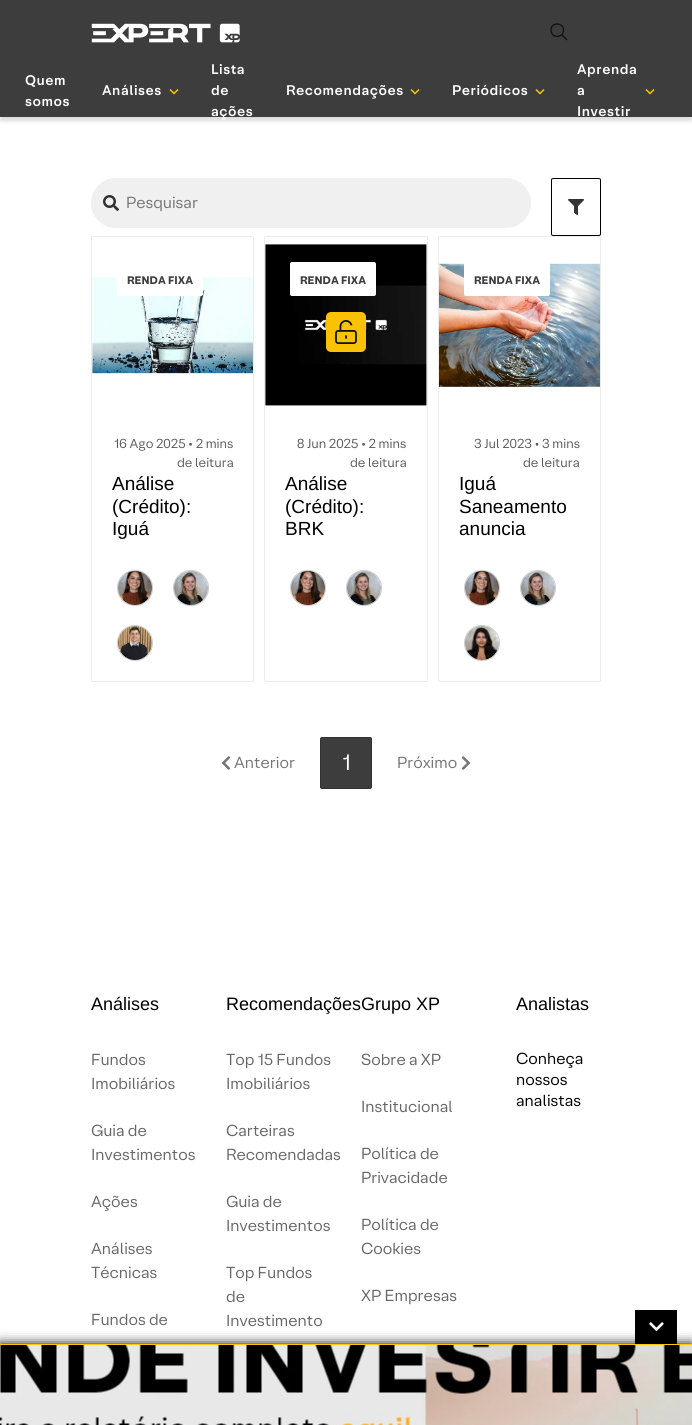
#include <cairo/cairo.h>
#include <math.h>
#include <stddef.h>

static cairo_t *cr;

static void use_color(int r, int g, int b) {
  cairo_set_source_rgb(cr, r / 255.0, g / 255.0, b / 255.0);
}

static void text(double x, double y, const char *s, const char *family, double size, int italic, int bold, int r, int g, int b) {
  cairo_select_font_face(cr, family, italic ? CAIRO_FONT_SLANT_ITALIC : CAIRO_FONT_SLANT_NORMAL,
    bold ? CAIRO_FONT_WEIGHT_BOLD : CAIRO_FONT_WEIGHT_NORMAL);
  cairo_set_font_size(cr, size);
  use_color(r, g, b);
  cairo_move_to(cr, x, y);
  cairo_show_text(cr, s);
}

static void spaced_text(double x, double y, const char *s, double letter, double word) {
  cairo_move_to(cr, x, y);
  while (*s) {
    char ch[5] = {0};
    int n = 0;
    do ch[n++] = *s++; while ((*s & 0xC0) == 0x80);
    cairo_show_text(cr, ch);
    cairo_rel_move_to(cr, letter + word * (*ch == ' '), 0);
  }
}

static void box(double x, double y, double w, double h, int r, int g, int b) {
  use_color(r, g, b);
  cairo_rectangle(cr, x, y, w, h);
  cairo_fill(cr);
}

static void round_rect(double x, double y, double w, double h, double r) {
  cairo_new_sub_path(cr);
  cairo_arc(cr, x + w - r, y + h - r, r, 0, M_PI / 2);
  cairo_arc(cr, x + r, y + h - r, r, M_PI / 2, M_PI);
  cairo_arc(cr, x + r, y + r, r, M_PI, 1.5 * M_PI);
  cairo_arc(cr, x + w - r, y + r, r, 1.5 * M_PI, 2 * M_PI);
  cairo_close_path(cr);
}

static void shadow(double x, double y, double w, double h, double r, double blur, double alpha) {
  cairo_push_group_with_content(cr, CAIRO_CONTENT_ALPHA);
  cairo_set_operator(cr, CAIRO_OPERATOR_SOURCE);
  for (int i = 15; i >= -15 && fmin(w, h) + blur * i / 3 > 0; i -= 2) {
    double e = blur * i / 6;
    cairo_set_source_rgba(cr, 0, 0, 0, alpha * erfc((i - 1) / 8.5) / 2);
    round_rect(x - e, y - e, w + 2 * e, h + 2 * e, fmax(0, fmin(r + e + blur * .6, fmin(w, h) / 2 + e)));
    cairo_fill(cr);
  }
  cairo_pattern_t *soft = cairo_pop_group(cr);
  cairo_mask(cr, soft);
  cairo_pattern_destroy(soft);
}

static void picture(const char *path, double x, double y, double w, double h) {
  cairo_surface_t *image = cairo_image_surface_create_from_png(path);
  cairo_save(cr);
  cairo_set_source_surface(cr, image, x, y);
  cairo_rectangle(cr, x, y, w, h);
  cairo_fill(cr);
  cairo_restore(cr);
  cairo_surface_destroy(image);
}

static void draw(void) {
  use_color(255, 255, 255);
  cairo_paint(cr);
  use_color(0, 0, 0);
  shadow(0, 4, 692, 117, 0, 2, 0.14);
  box(0, 0, 692, 117, 61, 61, 61);
  picture("img_01.png", 91, 23, 149, 20);
  cairo_new_path(cr);
  cairo_move_to(cr, 567, 40);
  cairo_line_to(cr, 561.5, 34.5);
  cairo_move_to(cr, 563.5, 30);
  cairo_curve_to(cr, 563.5, 38.5, 551, 38.5, 551, 30);
  cairo_curve_to(cr, 551, 22, 563.5, 22, 563.5, 30);
  cairo_close_path(cr);
  use_color(18, 18, 18);
  cairo_set_line_width(cr, 1.4);
  cairo_stroke(cr);
  cairo_new_path(cr);
  cairo_move_to(cr, 170, 89.5);
  cairo_line_to(cr, 174, 93.5);
  cairo_line_to(cr, 178, 89.5);
  use_color(251, 193, 5);
  cairo_set_line_width(cr, 1.5);
  cairo_stroke(cr);
  cairo_new_path(cr);
  cairo_move_to(cr, 411, 89.5);
  cairo_line_to(cr, 415, 93.5);
  cairo_line_to(cr, 419, 89.5);
  cairo_stroke(cr);
  cairo_new_path(cr);
  cairo_move_to(cr, 536, 89.5);
  cairo_line_to(cr, 540, 93.5);
  cairo_line_to(cr, 544, 89.5);
  cairo_stroke(cr);
  cairo_new_path(cr);
  cairo_move_to(cr, 646, 89.5);
  cairo_line_to(cr, 650, 93.5);
  cairo_line_to(cr, 654, 89.5);
  cairo_stroke(cr);
  use_color(240, 240, 240);
  round_rect(91, 178, 440, 50, 25);
  cairo_fill(cr);
  picture("img_02.png", 103, 195, 16, 16);
  round_rect(551.5, 178.5, 49, 57, 1.5);
  use_color(0, 0, 0);
  cairo_set_line_width(cr, 1);
  cairo_stroke(cr);
  picture("img_03.png", 568, 199, 16, 16);
  round_rect(91.5, 236.5, 162, 445, 1.5);
  use_color(236, 236, 236);
  cairo_stroke(cr);
  picture("img_04.png", 92, 277, 161, 97);
  use_color(255, 255, 255);
  round_rect(117, 262, 86, 34, 2);
  cairo_fill(cr);
  cairo_arc(cr, 135, 588, 17.5, 0, 2 * M_PI);
  use_color(203, 203, 203);
  cairo_stroke(cr);
  picture("img_05.png", 118, 571, 34, 34);
  cairo_arc(cr, 191, 588, 17.5, 0, 2 * M_PI);
  cairo_stroke(cr);
  picture("img_06.png", 174, 571, 34, 34);
  cairo_arc(cr, 135, 643, 17.5, 0, 2 * M_PI);
  cairo_stroke(cr);
  picture("img_07.png", 118, 626, 34, 34);
  round_rect(264.5, 236.5, 163, 445, 1.5);
  use_color(236, 236, 236);
  cairo_stroke(cr);
  picture("img_08.png", 265, 244, 162, 162);
  use_color(255, 255, 255);
  round_rect(290, 262, 86, 34, 2);
  cairo_fill(cr);
  picture("img_09.png", 326, 312, 40, 40);
  cairo_arc(cr, 308, 588, 17.5, 0, 2 * M_PI);
  use_color(203, 203, 203);
  cairo_stroke(cr);
  picture("img_10.png", 291, 571, 34, 34);
  cairo_arc(cr, 364, 588, 17.5, 0, 2 * M_PI);
  cairo_stroke(cr);
  picture("img_11.png", 347, 571, 34, 34);
  round_rect(438.5, 236.5, 162, 445, 1.5);
  use_color(236, 236, 236);
  cairo_stroke(cr);
  picture("img_12.png", 439, 263, 161, 124);
  use_color(255, 255, 255);
  round_rect(464, 262, 86, 34, 2);
  cairo_fill(cr);
  cairo_arc(cr, 482, 588, 17.5, 0, 2 * M_PI);
  use_color(203, 203, 203);
  cairo_stroke(cr);
  picture("img_13.png", 465, 571, 34, 34);
  cairo_arc(cr, 538, 588, 17.5, 0, 2 * M_PI);
  cairo_stroke(cr);
  picture("img_14.png", 521, 571, 34, 34);
  cairo_arc(cr, 482, 643, 17.5, 0, 2 * M_PI);
  cairo_stroke(cr);
  picture("img_15.png", 465, 626, 34, 34);
  picture("img_16.png", 221, 756, 10, 14);
  use_color(61, 61, 61);
  round_rect(320, 737, 52, 52, 2);
  cairo_fill(cr);
  round_rect(320.5, 737.5, 51, 51, 1.5);
  cairo_set_source_rgba(cr, 0, 0, 0, 0.2);
  cairo_stroke(cr);
  picture("img_17.png", 461, 756, 10, 14);
  use_color(0, 0, 0);
  shadow(0, 1344, 692, 81, 0, 6, 1);
  box(0, 1344, 692, 1, 255, 199, 9);
  box(635, 1310, 42, 34, 0, 0, 0);
  picture("img_18.png", 649, 1322, 15, 9);
  picture("img_19.png", 0, 1345, 692, 80);
  cairo_select_font_face(cr, "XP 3 Light", CAIRO_FONT_SLANT_NORMAL, CAIRO_FONT_WEIGHT_NORMAL);
  cairo_set_font_size(cr, 14);
  use_color(255, 255, 255);
  spaced_text(25, 85, "Quem", 0.5, 0);
  spaced_text(25, 106, "somos", 0.5, 0);
  spaced_text(102, 95, "Análises", 0.5, 0);
  spaced_text(211, 74, "Lista", 0.5, 0);
  spaced_text(211, 95, "de", 0.5, 0);
  spaced_text(211, 116, "ações", 0.5, 0);
  spaced_text(286, 95, "Recomendações", 0.5, 0);
  spaced_text(452, 95, "Periódicos", 0.5, 0);
  spaced_text(577, 74, "Aprenda", 0.5, 0);
  spaced_text(577, 95, "a", 0.5, 0);
  spaced_text(577, 116, "Investir", 0.5, 0);
  text(126, 208, "Pesquisar", "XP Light", 16, 0, 0, 117, 117, 117);
  text(127, 284, "RENDA FIXA", "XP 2 Light", 11, 0, 0, 61, 61, 61);
  text(114, 448, "16 Ago 2025 • 2 mins", "XP Light", 13, 0, 0, 89, 89, 89);
  text(177, 467, "de leitura", "XP Light", 13, 0, 0, 89, 89, 89);
  text(112, 490, "Análise", "Liberation Sans", 19, 0, 0, 0, 0, 0);
  text(112, 513, "(Crédito):", "Liberation Sans", 19, 0, 0, 0, 0, 0);
  text(112, 535, "Iguá", "Liberation Sans", 19, 0, 0, 0, 0, 0);
  text(300, 284, "RENDA FIXA", "XP 2 Light", 11, 0, 0, 61, 61, 61);
  text(297, 448, "8 Jun 2025 • 2 mins", "XP Light", 13, 0, 0, 89, 89, 89);
  text(350, 467, "de leitura", "XP Light", 13, 0, 0, 89, 89, 89);
  text(285, 490, "Análise", "Liberation Sans", 19, 0, 0, 0, 0, 0);
  text(285, 513, "(Crédito):", "Liberation Sans", 19, 0, 0, 0, 0, 0);
  text(285, 535, "BRK", "Liberation Sans", 19, 0, 0, 0, 0, 0);
  text(474, 284, "RENDA FIXA", "XP 2 Light", 11, 0, 0, 61, 61, 61);
  text(474, 448, "3 Jul 2023 • 3 mins", "XP Light", 13, 0, 0, 89, 89, 89);
  text(523, 467, "de leitura", "XP Light", 13, 0, 0, 89, 89, 89);
  text(459, 490, "Iguá", "Liberation Sans", 19, 0, 0, 0, 0, 0);
  text(459, 513, "Saneamento", "Liberation Sans", 19, 0, 0, 0, 0, 0);
  text(459, 535, "anuncia", "Liberation Sans", 19, 0, 0, 0, 0, 0);
  text(234, 768, "Anterior", "XP Light", 16, 0, 0, 117, 117, 117);
  text(342, 770, "1", "XP Light", 22, 0, 0, 255, 255, 255);
  text(397, 768, "Próximo", "XP Light", 16, 0, 0, 117, 117, 117);
  text(91, 1010, "Análises", "Liberation Sans", 18, 0, 0, 0, 0, 0);
  text(91, 1065, "Fundos", "XP Light", 16, 0, 0, 102, 102, 102);
  text(91, 1089, "Imobiliários", "XP Light", 16, 0, 0, 102, 102, 102);
  text(91, 1136, "Guia de", "XP Light", 16, 0, 0, 102, 102, 102);
  text(91, 1160, "Investimentos", "XP Light", 16, 0, 0, 102, 102, 102);
  text(91, 1207, "Ações", "XP Light", 16, 0, 0, 102, 102, 102);
  text(91, 1254, "Análises", "XP Light", 16, 0, 0, 102, 102, 102);
  text(91, 1278, "Técnicas", "XP Light", 16, 0, 0, 102, 102, 102);
  text(91, 1325, "Fundos de", "XP Light", 16, 0, 0, 102, 102, 102);
  text(226, 1010, "RecomendaçõesGrupo XP", "Liberation Sans", 18, 0, 0, 0, 0, 0);
  text(226, 1065, "Top 15 Fundos", "XP Light", 16, 0, 0, 102, 102, 102);
  text(226, 1089, "Imobiliários", "XP Light", 16, 0, 0, 102, 102, 102);
  text(226, 1136, "Carteiras", "XP Light", 16, 0, 0, 102, 102, 102);
  text(226, 1160, "Recomendadas", "XP Light", 16, 0, 0, 102, 102, 102);
  text(226, 1207, "Guia de", "XP Light", 16, 0, 0, 102, 102, 102);
  text(226, 1231, "Investimentos", "XP Light", 16, 0, 0, 102, 102, 102);
  text(226, 1278, "Top Fundos", "XP Light", 16, 0, 0, 102, 102, 102);
  text(226, 1302, "de", "XP Light", 16, 0, 0, 102, 102, 102);
  text(226, 1326, "Investimento", "XP Light", 16, 0, 0, 102, 102, 102);
  text(516, 1010, "Analistas", "Liberation Sans", 18, 0, 0, 0, 0, 0);
  text(516, 1064, "Conheça", "XP Light", 16, 0, 0, 0, 0, 0);
  text(516, 1085, "nossos", "XP Light", 16, 0, 0, 0, 0, 0);
  text(516, 1106, "analistas", "XP Light", 16, 0, 0, 0, 0, 0);
  text(361, 1065, "Sobre a XP", "XP Light", 16, 0, 0, 102, 102, 102);
  text(361, 1112, "Institucional", "XP Light", 16, 0, 0, 102, 102, 102);
  text(361, 1159, "Política de", "XP Light", 16, 0, 0, 102, 102, 102);
  text(361, 1183, "Privacidade", "XP Light", 16, 0, 0, 102, 102, 102);
  text(361, 1230, "Política de", "XP Light", 16, 0, 0, 102, 102, 102);
  text(361, 1254, "Cookies", "XP Light", 16, 0, 0, 102, 102, 102);
  text(361, 1301, "XP Empresas", "XP Light", 16, 0, 0, 102, 102, 102);
}

int main(void) {
  cairo_surface_t *surface = cairo_image_surface_create(CAIRO_FORMAT_RGB24, 692, 1425);
  cr = cairo_create(surface);
  cairo_font_options_t *options = cairo_font_options_create();
  cairo_font_options_set_hint_metrics(options, CAIRO_HINT_METRICS_OFF);
  cairo_font_options_set_hint_style(options, CAIRO_HINT_STYLE_NONE);
  cairo_set_font_options(cr, options);
  cairo_set_miter_limit(cr, 4);
  draw();
  cairo_surface_write_to_png(surface, "out.png");
  cairo_font_options_destroy(options);
  cairo_destroy(cr);
  cairo_surface_destroy(surface);
  return 0;
}
